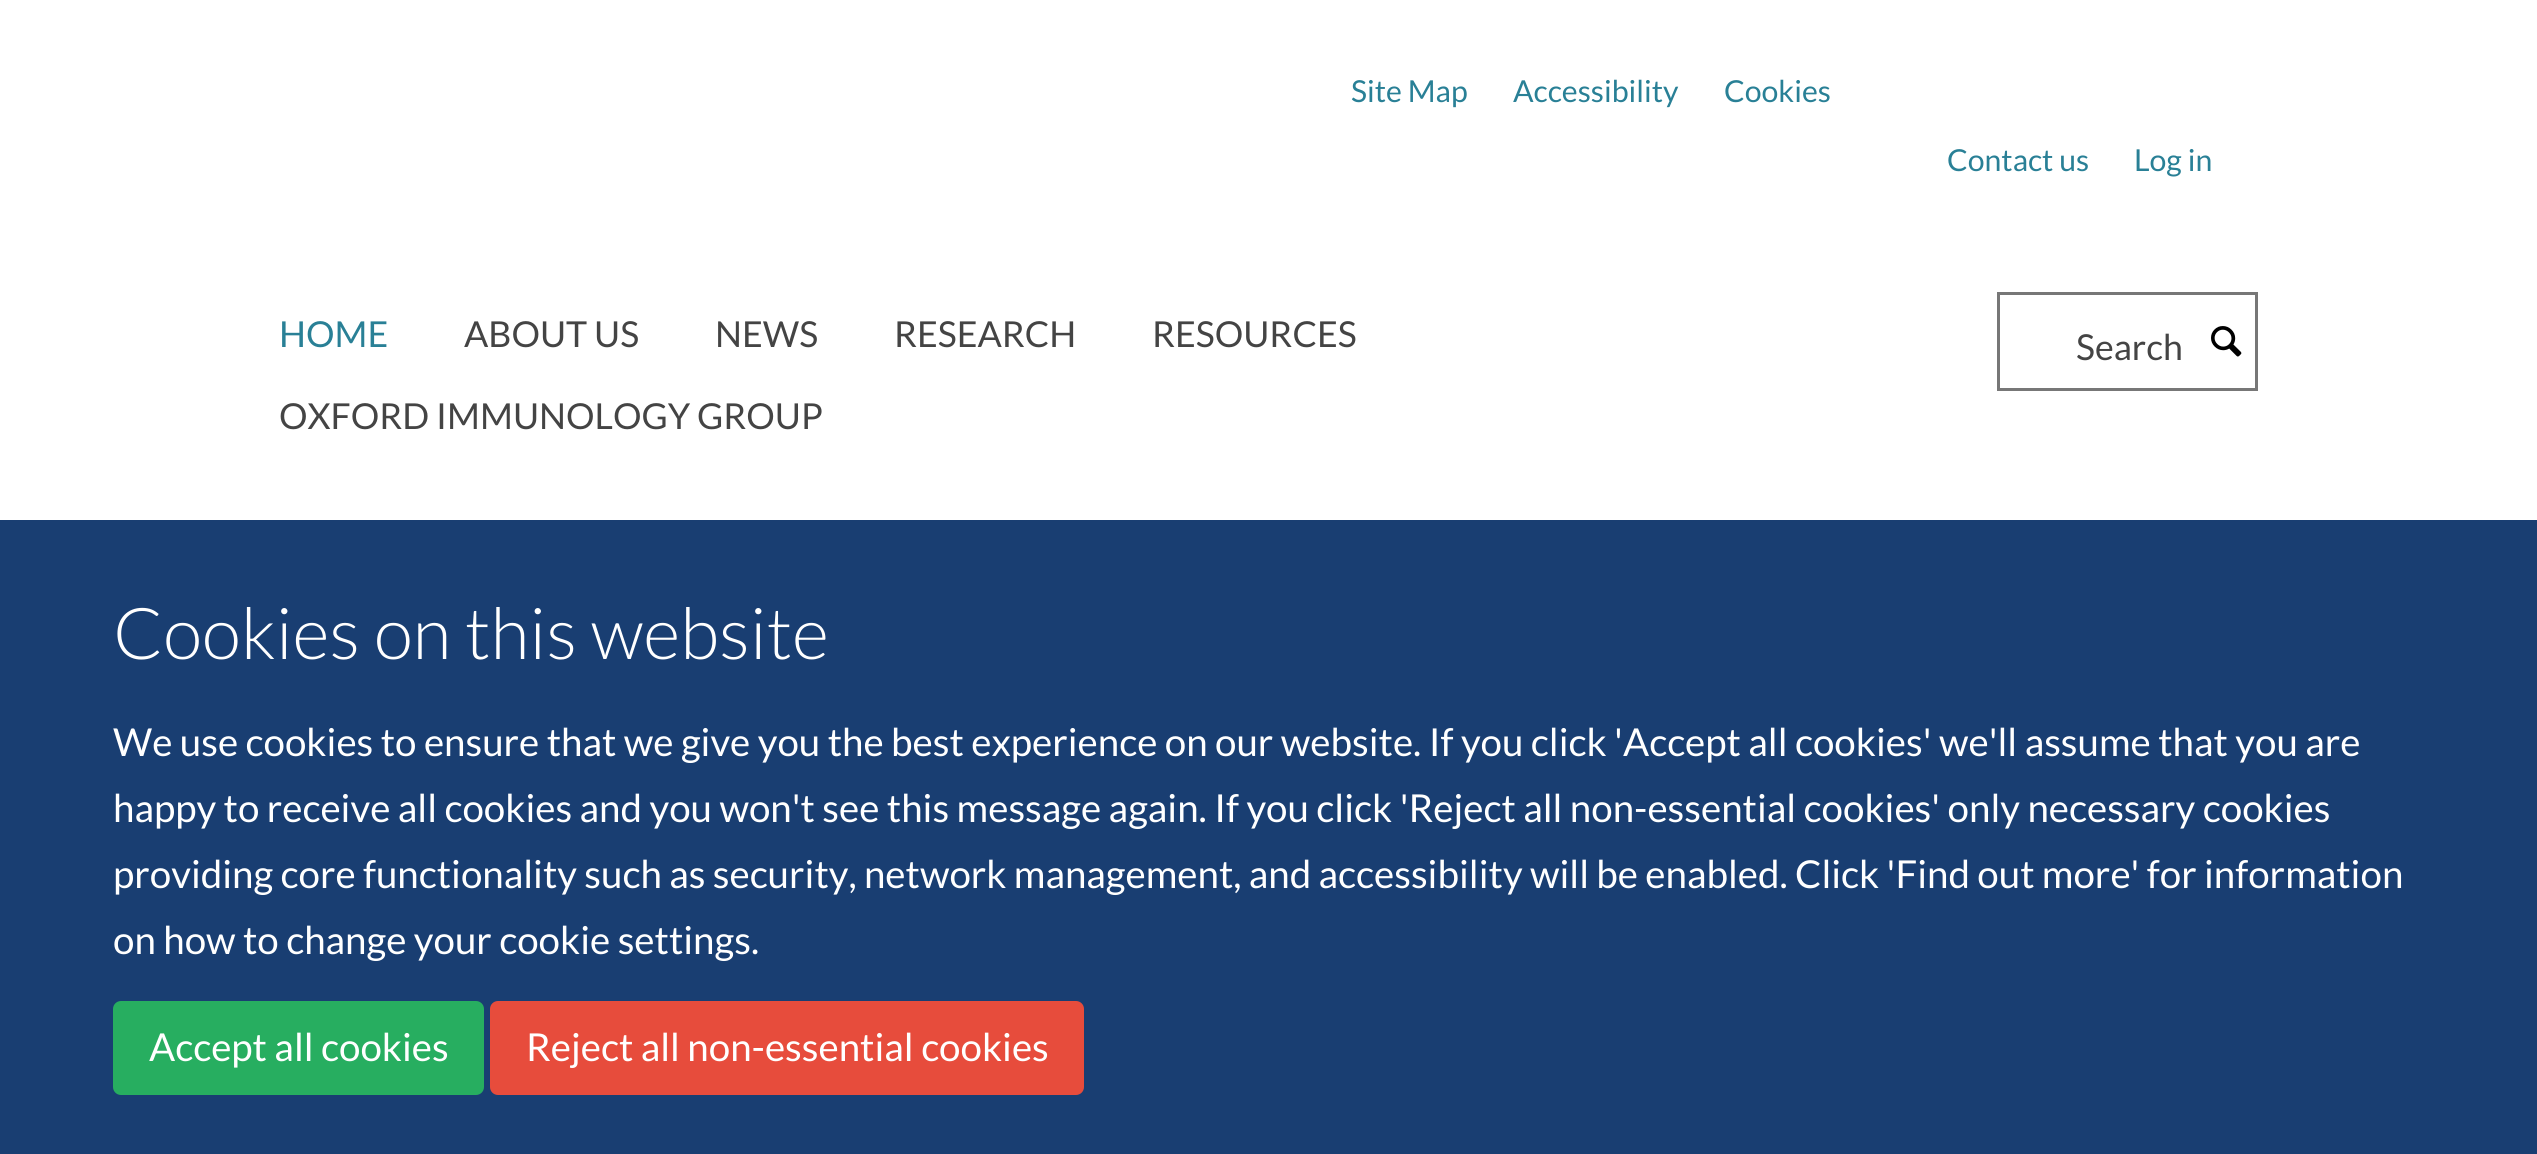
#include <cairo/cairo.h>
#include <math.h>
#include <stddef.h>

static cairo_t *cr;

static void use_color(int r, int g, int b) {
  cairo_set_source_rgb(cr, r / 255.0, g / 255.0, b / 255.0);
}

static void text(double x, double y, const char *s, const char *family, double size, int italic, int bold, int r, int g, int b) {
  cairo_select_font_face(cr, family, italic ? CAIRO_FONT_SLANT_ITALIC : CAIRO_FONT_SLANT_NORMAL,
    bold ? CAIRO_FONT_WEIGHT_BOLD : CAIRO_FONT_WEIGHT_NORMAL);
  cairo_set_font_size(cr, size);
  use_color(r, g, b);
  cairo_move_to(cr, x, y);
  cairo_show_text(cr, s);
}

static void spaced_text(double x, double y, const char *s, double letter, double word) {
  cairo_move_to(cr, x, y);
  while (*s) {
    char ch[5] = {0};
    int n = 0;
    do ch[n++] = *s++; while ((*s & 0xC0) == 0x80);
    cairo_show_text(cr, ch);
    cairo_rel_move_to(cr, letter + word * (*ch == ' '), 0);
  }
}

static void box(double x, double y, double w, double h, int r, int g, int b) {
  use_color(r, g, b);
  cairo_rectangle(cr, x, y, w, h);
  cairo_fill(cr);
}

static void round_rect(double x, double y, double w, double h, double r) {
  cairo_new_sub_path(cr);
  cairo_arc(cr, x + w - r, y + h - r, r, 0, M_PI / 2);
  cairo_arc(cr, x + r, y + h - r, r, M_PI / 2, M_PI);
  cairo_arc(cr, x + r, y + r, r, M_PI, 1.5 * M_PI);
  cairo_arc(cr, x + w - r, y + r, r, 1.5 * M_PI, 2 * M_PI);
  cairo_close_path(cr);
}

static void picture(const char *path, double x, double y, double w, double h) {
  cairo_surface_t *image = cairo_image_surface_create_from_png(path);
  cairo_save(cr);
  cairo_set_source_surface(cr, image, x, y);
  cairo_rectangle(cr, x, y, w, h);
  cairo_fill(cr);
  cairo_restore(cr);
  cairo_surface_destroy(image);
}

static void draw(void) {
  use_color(255, 255, 255);
  cairo_paint(cr);
  cairo_rectangle(cr, 1998.5, 293.5, 258, 96);
  use_color(119, 119, 119);
  cairo_set_line_width(cr, 3);
  cairo_stroke(cr);
  picture("img_01.png", 2211, 326, 31, 31);
  box(0, 520, 2537, 634, 25, 62, 114);
  use_color(39, 174, 96);
  round_rect(114.5, 1002.5, 368, 91, 6.5);
  cairo_fill_preserve(cr);
  cairo_stroke(cr);
  use_color(231, 76, 60);
  round_rect(491.5, 1002.5, 591, 91, 6.5);
  cairo_fill_preserve(cr);
  cairo_stroke(cr);
  text(1351, 102, "Site Map", "Lato", 30.25, 0, 0, 41, 128, 150);
  text(1513, 102, "Accessibility", "Lato", 30.25, 0, 0, 41, 128, 150);
  text(1724, 102, "Cookies", "Lato", 30.25, 0, 0, 41, 128, 150);
  text(1947, 171, "Contact us", "Lato", 30.25, 0, 0, 41, 128, 150);
  text(2134, 171, "Log in", "Lato", 30.25, 0, 0, 41, 128, 150);
  text(279, 347, "HOME", "Lato", 35.75, 0, 0, 41, 128, 150);
  text(464, 347, "ABOUT US", "Lato", 35.75, 0, 0, 68, 68, 68);
  text(715, 347, "NEWS", "Lato", 35.75, 0, 0, 68, 68, 68);
  text(894, 347, "RESEARCH", "Lato", 35.75, 0, 0, 68, 68, 68);
  text(1152, 347, "RESOURCES", "Lato", 35.75, 0, 0, 68, 68, 68);
  text(279, 429, "OXFORD IMMUNOLOGY GROUP", "Lato", 35.75, 0, 0, 68, 68, 68);
  text(2076, 360, "Search", "Lato", 35.75, 0, 0, 68, 68, 68);
  text(113, 659, "Cookies on this website", "Lato Light", 71.5, 0, 0, 255, 255, 255);
  text(113, 756, "We use cookies to ensure that we give you the best experience on our website. If you click 'Accept all cookies' we'll assume that you are", "Lato", 38.5, 0, 0, 255, 255, 255);
  text(113, 822, "happy to receive all cookies and you won't see this message again. If you click 'Reject all non-essential cookies' only necessary cookies", "Lato", 38.5, 0, 0, 255, 255, 255);
  spaced_text(113, 888, "providing core functionality such as security, network management, and accessibility will be enabled. Click 'Find out more' for information", 0, -0.1);
  text(113, 954, "on how to change your cookie settings.", "Lato", 38.5, 0, 0, 255, 255, 255);
  text(149, 1061, "Accept all cookies", "Lato", 38.5, 0, 0, 255, 255, 255);
  text(526, 1061, "Reject all non-essential cookies", "Lato", 38.5, 0, 0, 255, 255, 255);
}

int main(void) {
  cairo_surface_t *surface = cairo_image_surface_create(CAIRO_FORMAT_RGB24, 2537, 1154);
  cr = cairo_create(surface);
  cairo_font_options_t *options = cairo_font_options_create();
  cairo_font_options_set_hint_metrics(options, CAIRO_HINT_METRICS_OFF);
  cairo_font_options_set_hint_style(options, CAIRO_HINT_STYLE_NONE);
  cairo_set_font_options(cr, options);
  cairo_set_miter_limit(cr, 4);
  draw();
  cairo_surface_write_to_png(surface, "out.png");
  cairo_font_options_destroy(options);
  cairo_destroy(cr);
  cairo_surface_destroy(surface);
  return 0;
}
